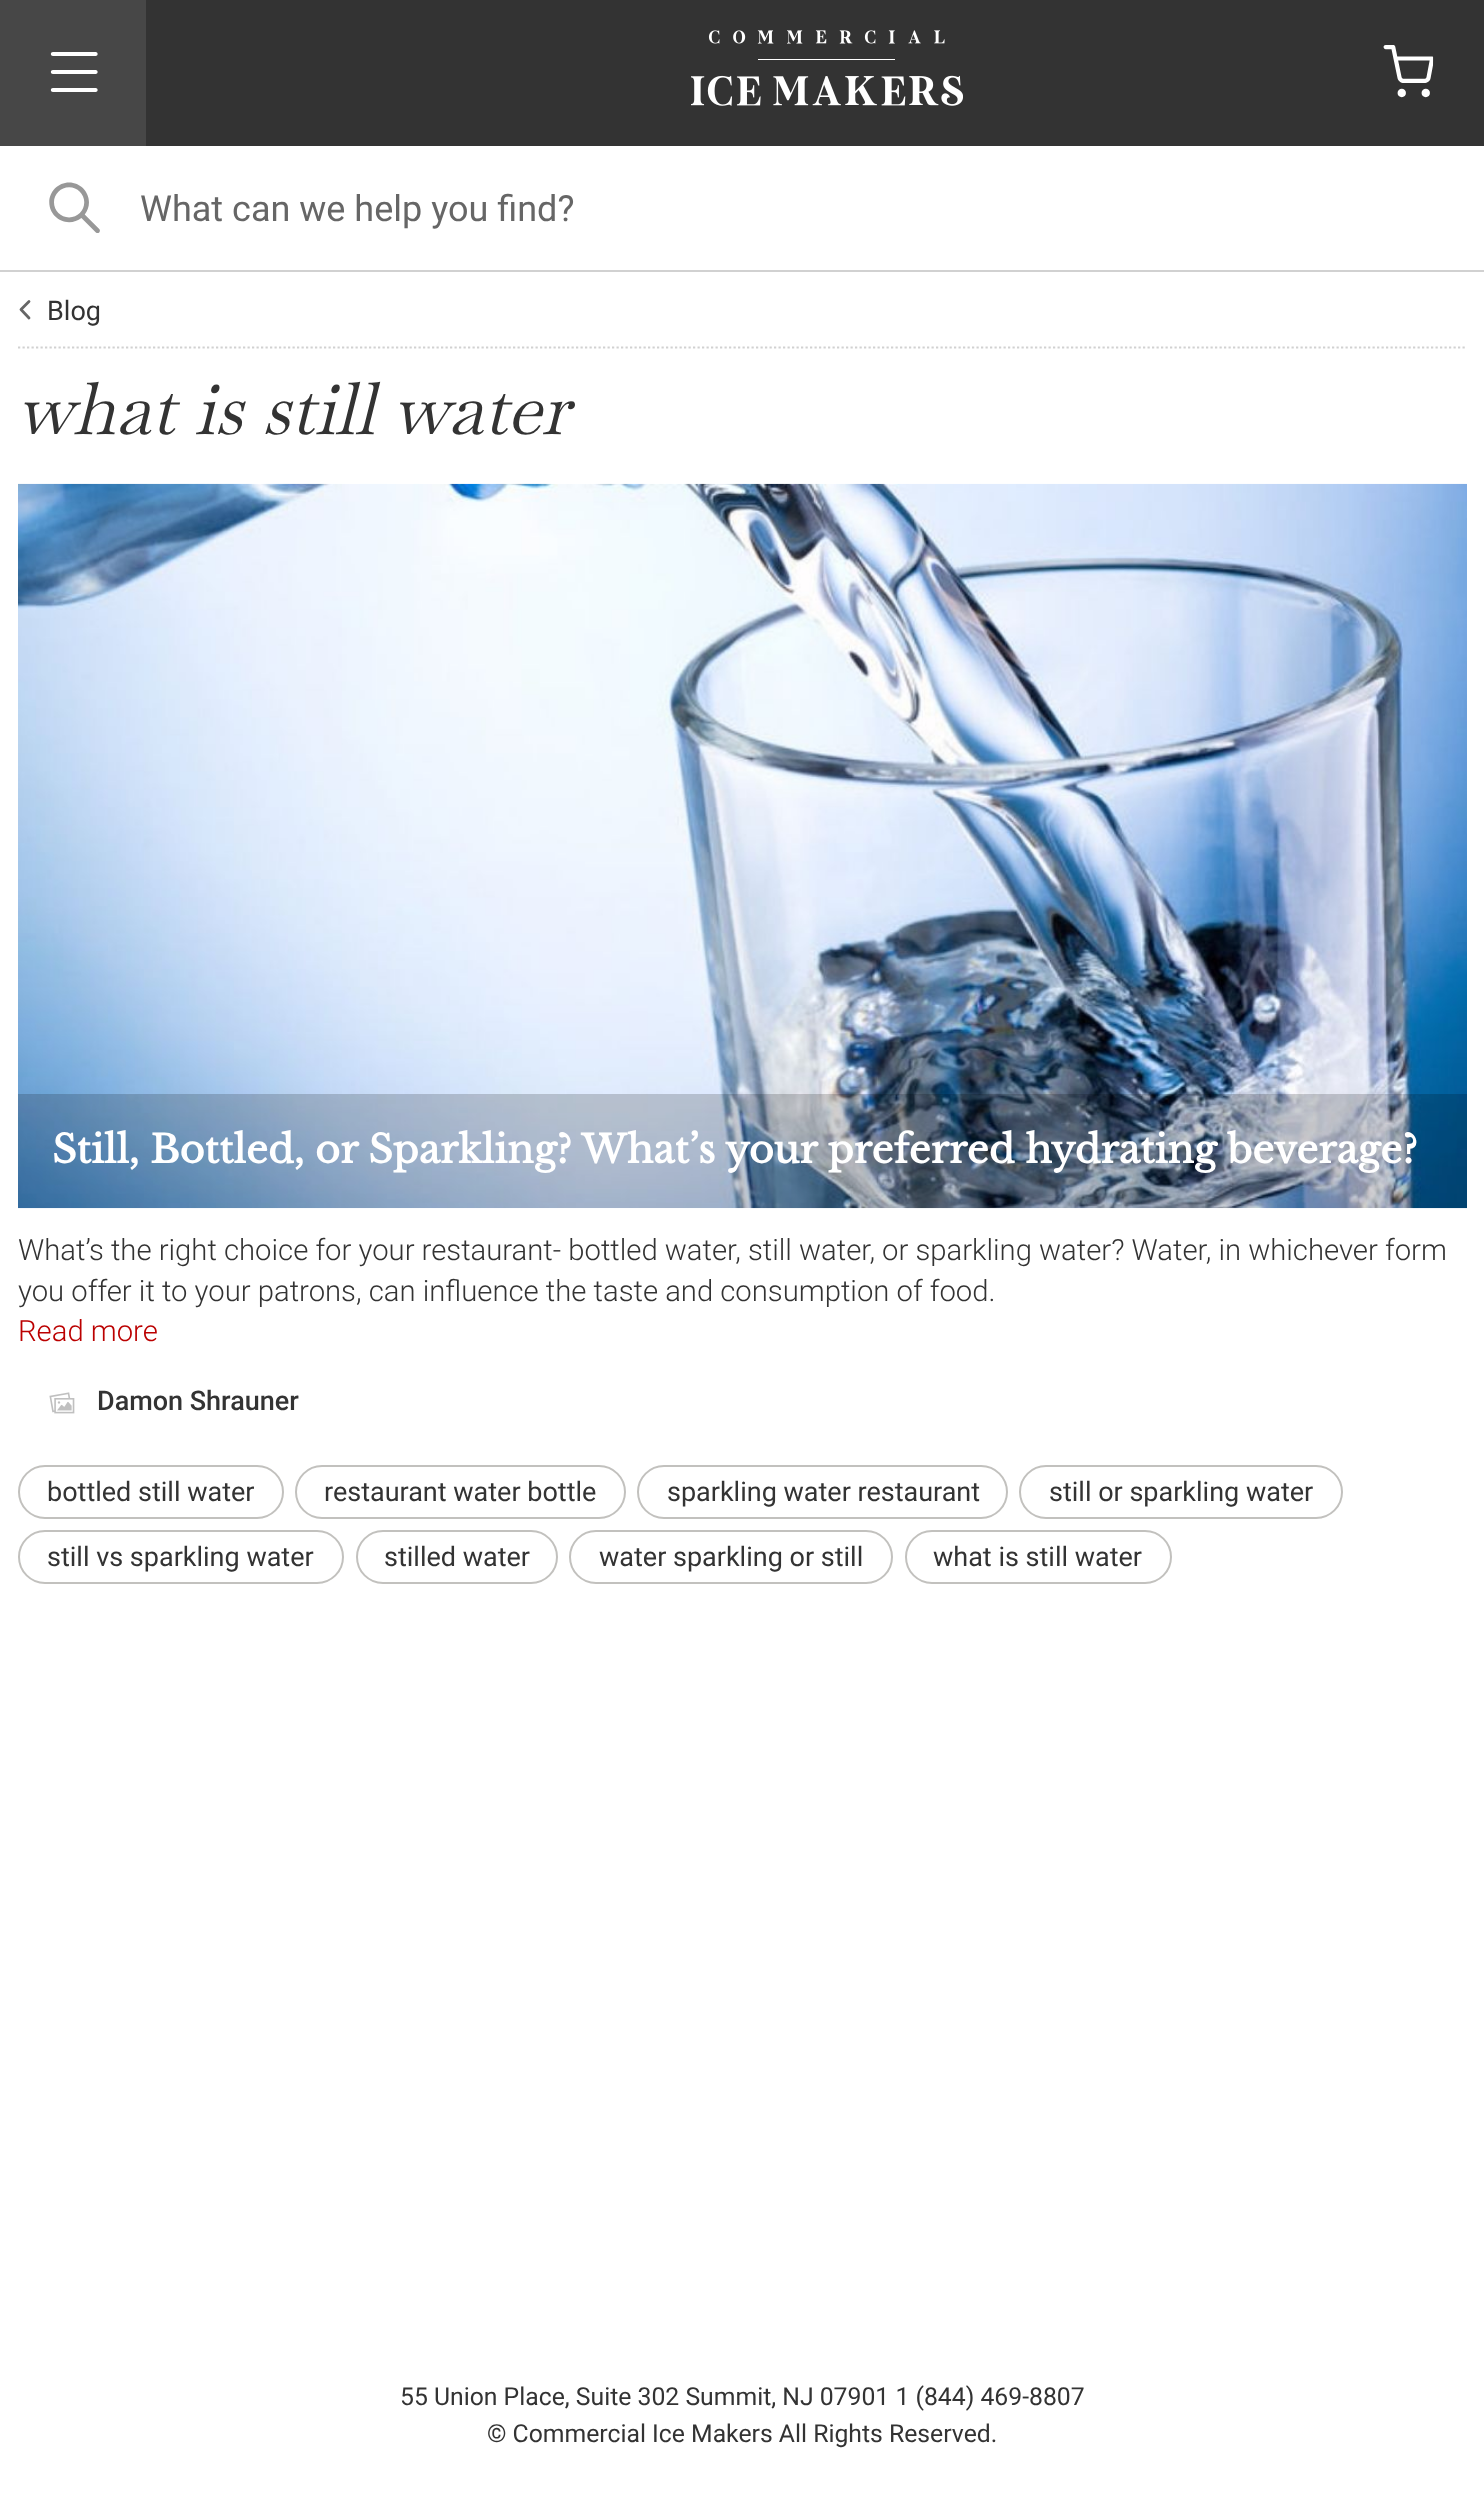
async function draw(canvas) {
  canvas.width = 1484
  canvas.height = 2511
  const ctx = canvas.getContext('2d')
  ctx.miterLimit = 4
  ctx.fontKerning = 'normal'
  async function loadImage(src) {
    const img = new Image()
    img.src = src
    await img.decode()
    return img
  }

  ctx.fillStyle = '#fff'
  ctx.fillRect(0, 0, 1484, 2511)
  ctx.fillStyle = '#333'
  ctx.fillRect(146, 0, 1338, 146)
  ctx.fillStyle = '#474747'
  ctx.fillRect(0, 0, 146, 146)
  ctx.drawImage(await loadImage('image0.png'), 50, 52, 48, 40)
  ctx.drawImage(await loadImage('image1.png'), 691, 30, 272, 76)
  ctx.drawImage(await loadImage('image2.png'), 1383, 45, 51, 53)
  ctx.fillStyle = '#d1d1d1'
  ctx.fillRect(0, 270, 1484, 2)
  ctx.drawImage(await loadImage('image3.png'), 49, 182, 51, 51)
  ctx.font = '36px Roboto'
  ctx.fillStyle = '#666'
  ctx.fillText('What can we help you find?', 140, 221)
  ctx.beginPath()
  ctx.moveTo(18, 347.5)
  ctx.lineTo(1467, 347.5)
  ctx.strokeStyle = '#d1d1d1'
  ctx.lineWidth = 2.2
  ctx.setLineDash([2.25, 2.25])
  ctx.stroke()
  ctx.beginPath()
  ctx.moveTo(29, 318)
  ctx.lineTo(21, 309.5)
  ctx.lineTo(29, 301.5)
  ctx.strokeStyle = '#666'
  ctx.lineWidth = 2.8
  ctx.lineCap = 'round'
  ctx.lineJoin = 'round'
  ctx.setLineDash([])
  ctx.stroke()
  ctx.font = '27px Roboto'
  ctx.fillStyle = '#333'
  ctx.fillText('Blog', 47, 320)
  ctx.font = 'italic 72px Baskervville'
  ctx.fillText('what is still water', 18, 434)
  ctx.drawImage(await loadImage('image4.png'), 18, 483, 1449, 726)
  ctx.fillStyle = '#0000002e'
  ctx.fillRect(18, 1094, 1449, 114)
  ctx.font = 'bold 38.25px Libre Baskerville'
  ctx.fillStyle = '#fff'
  ctx.fillText('Still, Bottled, or Sparkling? What’s your preferred hydrating beverage?', 52, 1163)
  ctx.font = '300 29.25px Roboto'
  ctx.fillStyle = '#333'
  ctx.fillText('What’s the right choice for your restaurant- bottled water, still water, or sparkling water? Water, in whichever form', 18, 1260)
  ctx.fillText('you offer it to your patrons, can influence the taste and consumption of food.', 18, 1301)
  ctx.fillStyle = '#b00'
  ctx.fillText('Read more', 18, 1341)
  ctx.drawImage(await loadImage('image5.png'), 49, 1392, 26, 22)
  ctx.font = '500 27px Roboto'
  ctx.fillStyle = '#333'
  ctx.fillText('Damon Shrauner', 97, 1410)
  ctx.beginPath()
  ctx.roundRect(19, 1466, 264, 52, 26)
  ctx.strokeStyle = '#c2c1be'
  ctx.lineWidth = 2
  ctx.lineJoin = 'miter'
  ctx.stroke()
  ctx.font = '27px Roboto'
  ctx.fillText('bottled still water', 47, 1501)
  ctx.beginPath()
  ctx.roundRect(296, 1466, 329, 52, 26)
  ctx.stroke()
  ctx.fillText('restaurant water bottle', 324, 1501)
  ctx.beginPath()
  ctx.roundRect(638, 1466, 369, 52, 26)
  ctx.stroke()
  ctx.fillText('sparkling water restaurant', 667, 1501)
  ctx.beginPath()
  ctx.roundRect(1020, 1466, 322, 52, 26)
  ctx.stroke()
  ctx.fillText('still or sparkling water', 1049, 1501)
  ctx.beginPath()
  ctx.roundRect(19, 1531, 324, 52, 26)
  ctx.stroke()
  ctx.fillText('still vs sparkling water', 47, 1566)
  ctx.beginPath()
  ctx.roundRect(357, 1531, 200, 52, 26)
  ctx.stroke()
  ctx.fillText('stilled water', 384, 1566)
  ctx.beginPath()
  ctx.roundRect(570, 1531, 322, 52, 26)
  ctx.stroke()
  ctx.fillText('water sparkling or still', 599, 1566)
  ctx.beginPath()
  ctx.roundRect(906, 1531, 265, 52, 26)
  ctx.stroke()
  ctx.fillText('what is still water', 933, 1566)
  ctx.font = '24.75px Roboto'
  ctx.fillText('55 Union Place, Suite 302 Summit, NJ 07901 1 (844) 469-8807', 400, 2405)
  ctx.fillText('© Commercial Ice Makers All Rights Reserved.', 487, 2442)
}

draw(document.querySelector('canvas'))
